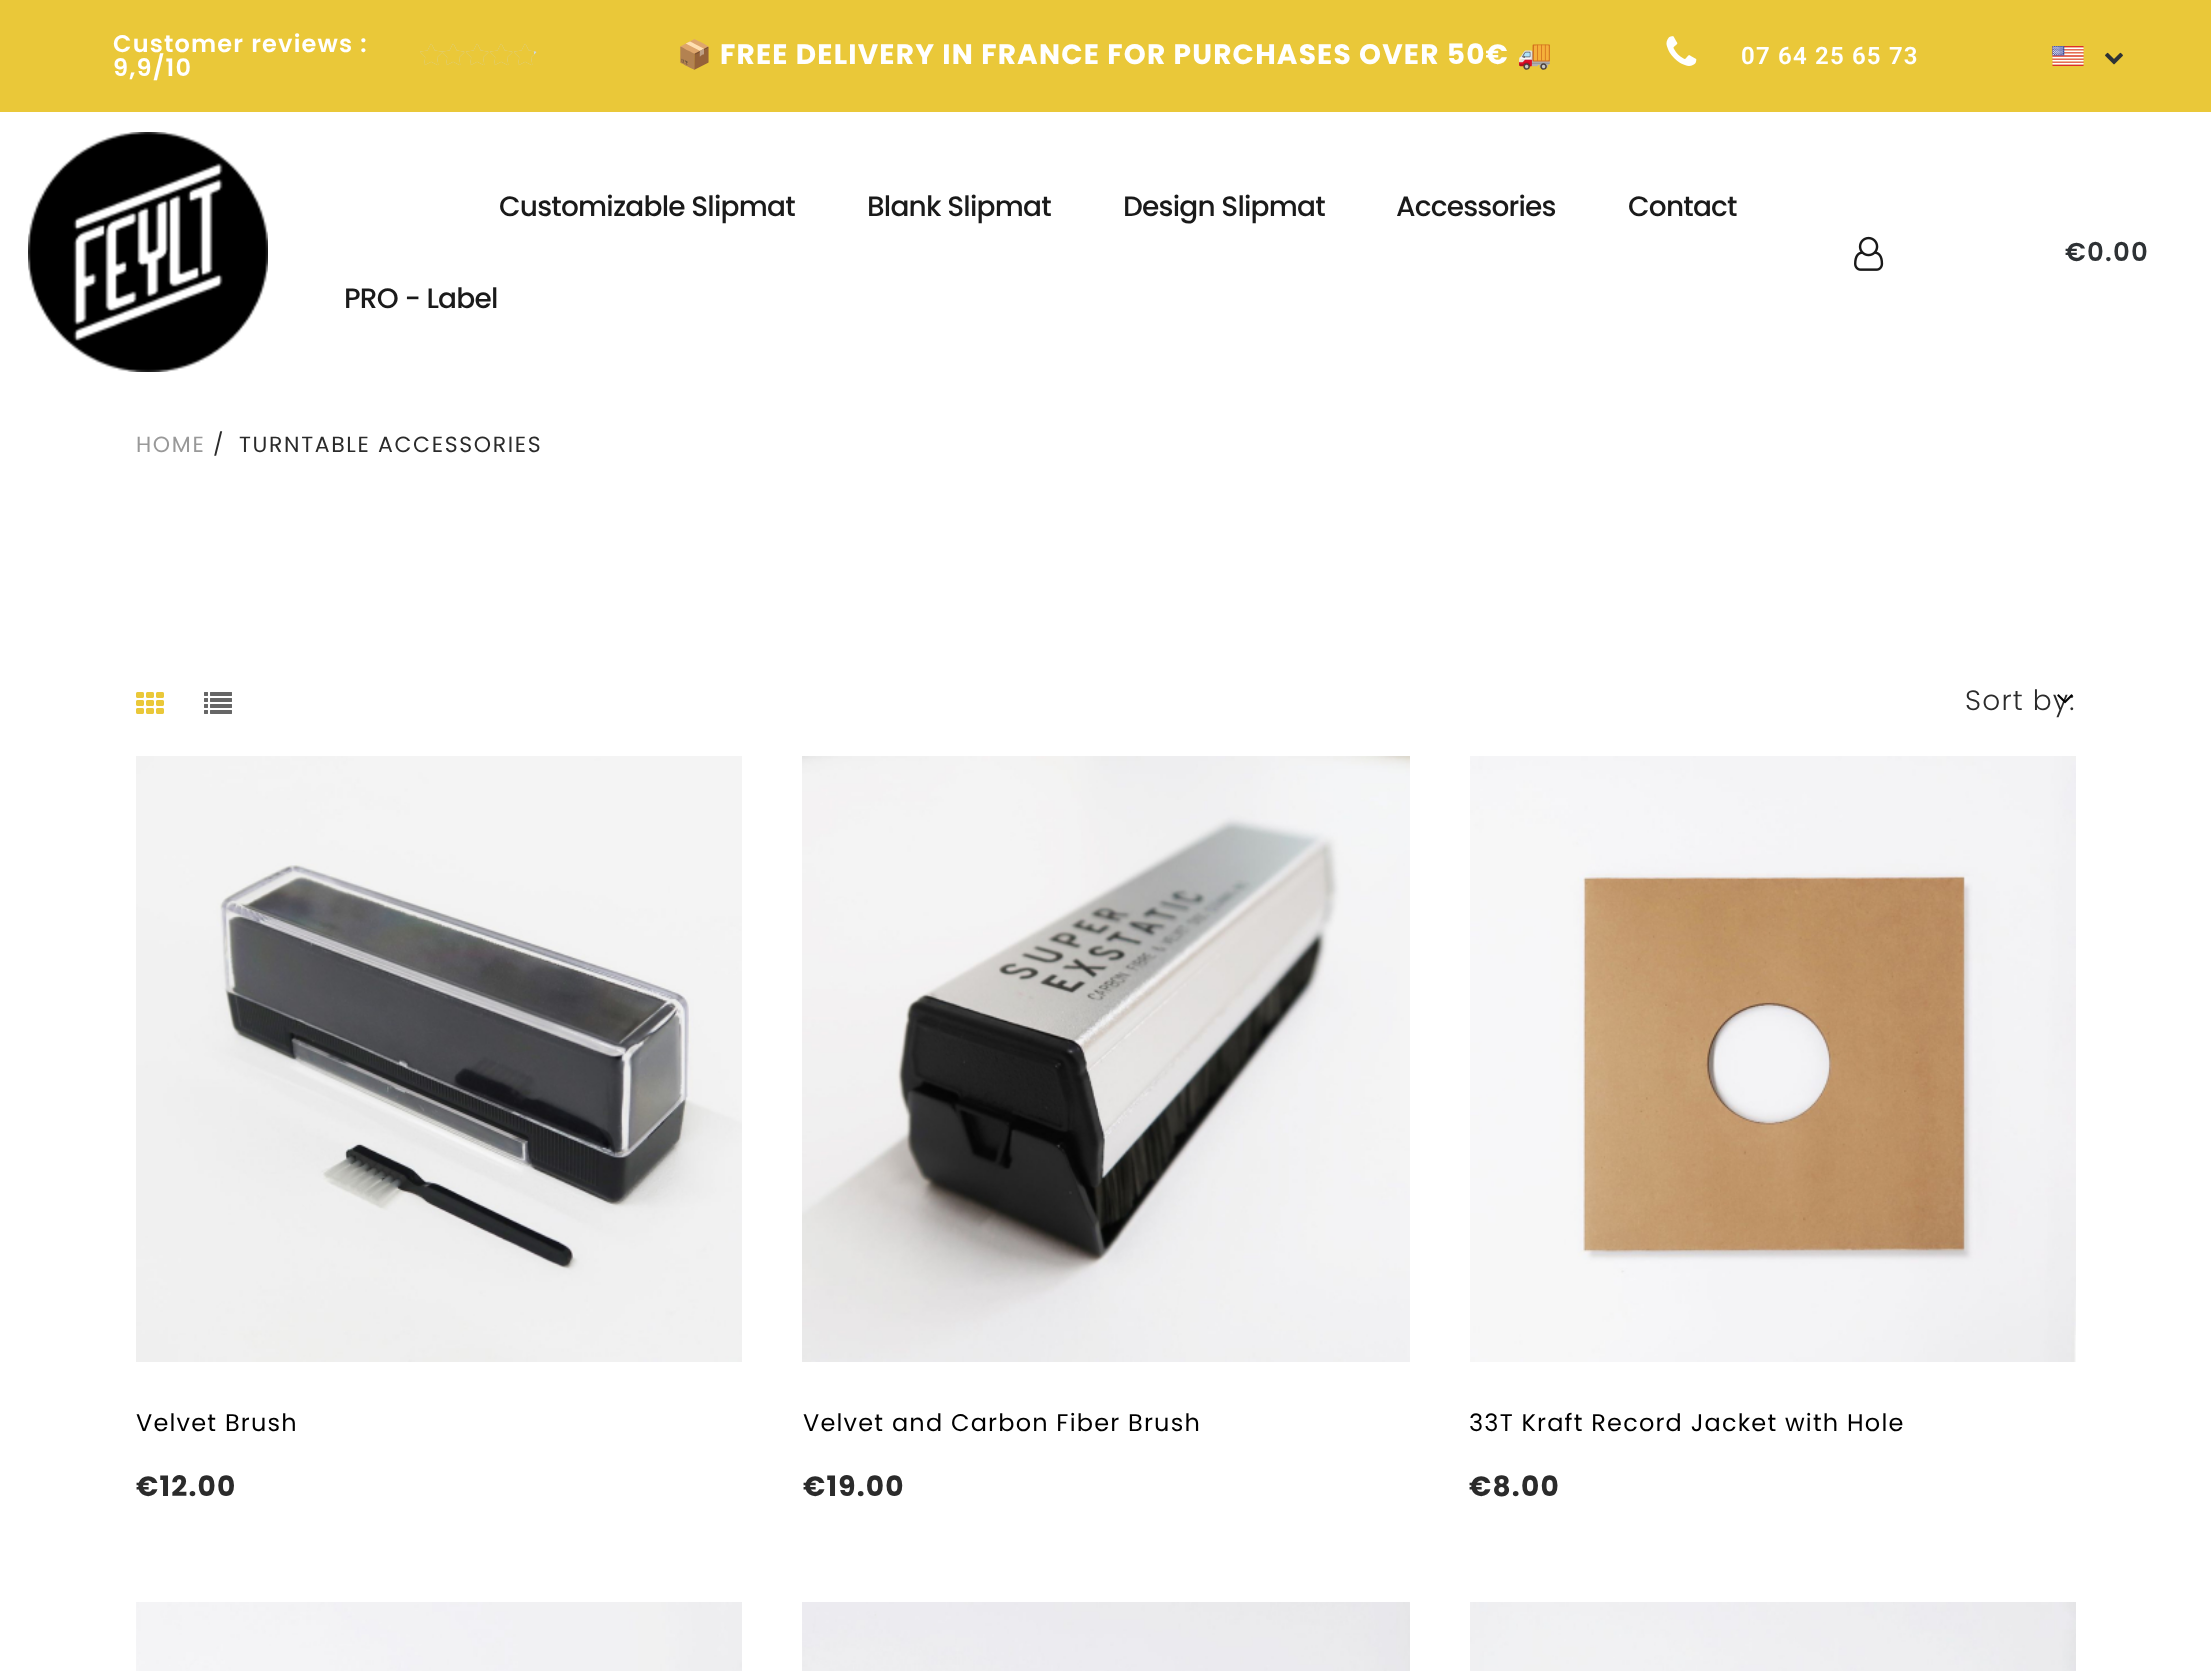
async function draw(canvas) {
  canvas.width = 2211
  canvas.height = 1671
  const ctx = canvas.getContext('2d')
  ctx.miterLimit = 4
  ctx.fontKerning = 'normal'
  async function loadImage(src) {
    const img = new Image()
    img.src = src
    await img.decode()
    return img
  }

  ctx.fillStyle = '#fff'
  ctx.fillRect(0, 0, 2211, 1671)
  ctx.fillStyle = '#eac839'
  ctx.fillRect(0, 0, 2211, 112)
  ctx.letterSpacing = '1.2px'
  ctx.font = '600 24px Poppins'
  ctx.fillStyle = '#fff'
  ctx.fillText('Customer reviews :', 113, 52)
  ctx.fillText('9,9/10', 113, 76)
  ctx.drawImage(await loadImage('image0.png'), 420, 43, 23, 23)
  ctx.drawImage(await loadImage('image1.png'), 420, 44, 22, 21)
  ctx.drawImage(await loadImage('image2.png'), 442, 43, 23, 23)
  ctx.drawImage(await loadImage('image3.png'), 442, 44, 22, 21)
  ctx.drawImage(await loadImage('image0.png'), 466, 43, 23, 23)
  ctx.drawImage(await loadImage('image1.png'), 466, 44, 22, 21)
  ctx.drawImage(await loadImage('image0.png'), 490, 43, 23, 23)
  ctx.drawImage(await loadImage('image1.png'), 490, 44, 22, 21)
  ctx.drawImage(await loadImage('image0.png'), 514, 43, 23, 23)
  ctx.drawImage(await loadImage('image4.png'), 514, 44, 20, 21)
  ctx.font = 'bold 28px Noto Color Emoji'
  ctx.fillText('📦', 677, 64)
  ctx.font = 'bold 28px Poppins'
  ctx.fillText('FREE DELIVERY IN FRANCE FOR PURCHASES OVER 50€', 720, 64)
  ctx.font = 'bold 28px Noto Color Emoji'
  ctx.fillText('🚚', 1517, 64)
  ctx.drawImage(await loadImage('image5.png'), 1666, 36, 31, 30)
  ctx.font = '600 24px Roboto'
  ctx.fillText('07 64 25 65 73', 1741, 64)
  ctx.drawImage(await loadImage('image6.png'), 2052, 46, 32, 20)
  ctx.drawImage(await loadImage('image7.png'), 2105, 52, 18, 13)
  ctx.drawImage(await loadImage('image8.png'), 28, 132, 240, 240)
  ctx.letterSpacing = '-0.8px'
  ctx.font = '500 28px Poppins'
  ctx.fillStyle = '#1a1a1a'
  ctx.fillText('Customizable Slipmat', 499, 216)
  ctx.fillText('Blank Slipmat', 867, 216)
  ctx.fillText('Design Slipmat', 1123, 216)
  ctx.fillText('Accessories', 1396, 216)
  ctx.fillText('Contact', 1628, 216)
  ctx.fillText('PRO - Label', 344, 308)
  ctx.drawImage(await loadImage('image9.png'), 1854, 236, 30, 35)
  ctx.letterSpacing = '1.2px'
  ctx.font = '600 26px Poppins'
  ctx.fillStyle = '#2e3235'
  ctx.fillText('€0.00', 2065, 261)
  ctx.letterSpacing = '1.65px'
  ctx.font = '22px Poppins'
  ctx.fillStyle = '#999'
  ctx.fillText('HOME', 136, 452)
  ctx.fillStyle = '#2b2b2b'
  ctx.fillText('/', 213, 452)
  ctx.fillText('TURNTABLE ACCESSORIES', 239, 452)
  ctx.drawImage(await loadImage('image10.png'), 136, 692, 28, 22)
  ctx.drawImage(await loadImage('image11.png'), 204, 692, 28, 22)
  ctx.letterSpacing = '1.2px'
  ctx.font = '300 28px Poppins'
  ctx.fillText('Sort by:', 1965, 710)
  ctx.drawImage(await loadImage('image12.png'), 2057, 694, 16, 10)
  ctx.drawImage(await loadImage('image13.png'), 136, 756, 606, 606)
  ctx.font = '24px Poppins'
  ctx.fillStyle = '#000'
  ctx.fillText('Velvet Brush', 136, 1431)
  ctx.font = 'bold 28px Poppins'
  ctx.fillStyle = '#2b2b2b'
  ctx.fillText('€12.00', 136, 1496)
  ctx.drawImage(await loadImage('image14.png'), 802, 756, 608, 606)
  ctx.font = '24px Poppins'
  ctx.fillStyle = '#000'
  ctx.fillText('Velvet and Carbon Fiber Brush', 803, 1431)
  ctx.font = 'bold 28px Poppins'
  ctx.fillStyle = '#2b2b2b'
  ctx.fillText('€19.00', 803, 1496)
  ctx.drawImage(await loadImage('image15.png'), 1470, 756, 606, 606)
  ctx.font = '24px Poppins'
  ctx.fillStyle = '#000'
  ctx.fillText('33T Kraft Record Jacket with Hole', 1469, 1431)
  ctx.font = 'bold 28px Poppins'
  ctx.fillStyle = '#2b2b2b'
  ctx.fillText('€8.00', 1469, 1496)
  ctx.drawImage(await loadImage('image16.png'), 136, 1602, 606, 69)
  ctx.drawImage(await loadImage('image17.png'), 802, 1602, 608, 69)
  ctx.drawImage(await loadImage('image18.png'), 1470, 1602, 606, 69)
}

draw(document.querySelector('canvas'))
